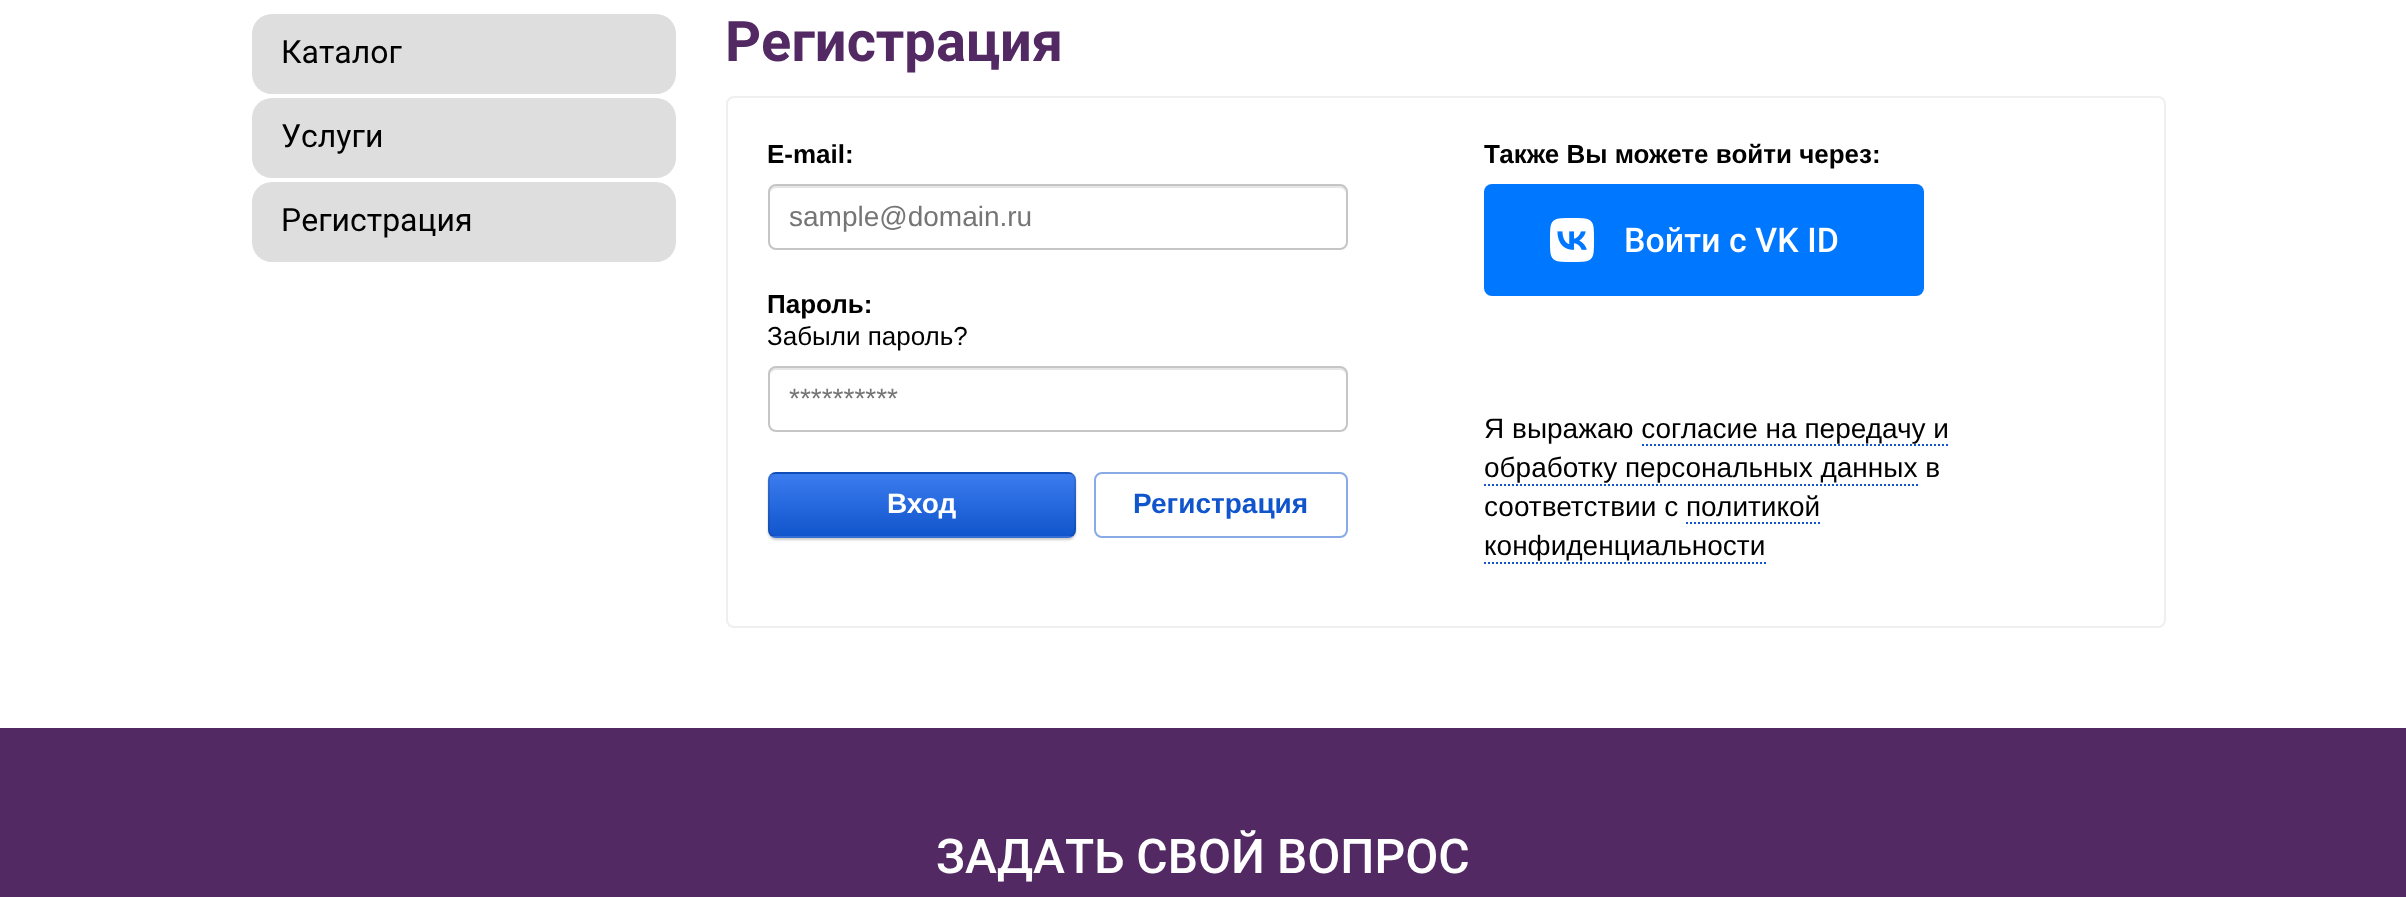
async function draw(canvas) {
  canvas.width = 2406
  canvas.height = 897
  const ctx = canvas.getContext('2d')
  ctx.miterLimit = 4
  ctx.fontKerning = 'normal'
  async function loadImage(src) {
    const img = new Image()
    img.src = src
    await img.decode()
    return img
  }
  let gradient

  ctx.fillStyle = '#fff'
  ctx.fillRect(0, 0, 2406, 897)
  ctx.fillStyle = '#dedede'
  ctx.beginPath()
  ctx.roundRect(252, 14, 424, 80, 20)
  ctx.fill()
  ctx.font = '32px Roboto'
  ctx.fillStyle = '#000'
  ctx.fillText('Каталог', 281, 63)
  ctx.fillStyle = '#dedede'
  ctx.beginPath()
  ctx.roundRect(252, 98, 424, 80, 20)
  ctx.fill()
  ctx.fillStyle = '#000'
  ctx.fillText('Услуги', 281, 147)
  ctx.fillStyle = '#dedede'
  ctx.beginPath()
  ctx.roundRect(252, 182, 424, 80, 20)
  ctx.fill()
  ctx.fillStyle = '#000'
  ctx.fillText('Регистрация', 281, 231)
  ctx.font = 'bold 56px Roboto'
  ctx.fillStyle = '#532964'
  ctx.fillText('Регистрация', 725, 61)
  ctx.beginPath()
  ctx.roundRect(727, 97, 1438, 530, 7)
  ctx.strokeStyle = '#efefef'
  ctx.lineWidth = 2
  ctx.stroke()
  ctx.font = 'bold 26px Liberation Sans'
  ctx.fillStyle = '#000'
  ctx.fillText('E-mail:', 767, 163)
  ctx.fillStyle = '#e6e6e6'
  ctx.beginPath()
  ctx.moveTo(776, 188)
  ctx.lineTo(1340, 188)
  ctx.bezierCurveTo(1343, 188, 1346, 191, 1346, 194)
  ctx.bezierCurveTo(1346, 190, 1345, 186, 1340, 186)
  ctx.lineTo(776, 186)
  ctx.bezierCurveTo(771, 186, 770, 190, 770, 194)
  ctx.bezierCurveTo(770, 191, 773, 188, 776, 188)
  ctx.closePath()
  ctx.fill()
  ctx.beginPath()
  ctx.roundRect(769, 185, 578, 64, 7)
  ctx.strokeStyle = '#c5c5c5'
  ctx.stroke()
  ctx.font = '28px Liberation Sans'
  ctx.fillStyle = '#757575'
  ctx.fillText('sample@domain.ru', 789, 226)
  ctx.font = 'bold 26px Liberation Sans'
  ctx.fillStyle = '#000'
  ctx.fillText('Пароль:', 767, 313)
  ctx.font = '26px Liberation Sans'
  ctx.fillText('Забыли пароль?', 767, 345)
  ctx.fillStyle = '#e6e6e6'
  ctx.beginPath()
  ctx.moveTo(776, 370)
  ctx.lineTo(1340, 370)
  ctx.bezierCurveTo(1343, 370, 1346, 373, 1346, 376)
  ctx.bezierCurveTo(1346, 372, 1345, 368, 1340, 368)
  ctx.lineTo(776, 368)
  ctx.bezierCurveTo(771, 368, 770, 372, 770, 376)
  ctx.bezierCurveTo(770, 373, 773, 370, 776, 370)
  ctx.closePath()
  ctx.fill()
  ctx.beginPath()
  ctx.roundRect(769, 367, 578, 64, 7)
  ctx.stroke()
  ctx.font = '28px Liberation Sans'
  ctx.fillStyle = '#757575'
  ctx.fillText('**********', 789, 408)
  ctx.fillStyle = '#00000033'
  ctx.filter = 'blur(1px)'
  ctx.beginPath()
  ctx.roundRect(768, 474, 308, 66, 8)
  ctx.fill()
  ctx.filter = 'none'
  ctx.save()
  ctx.beginPath()
  ctx.roundRect(768, 472, 308, 66, 8)
  ctx.clip()
  gradient = ctx.createLinearGradient(922, 412, 922, 474)
  gradient.addColorStop(0, '#3b7cef')
  gradient.addColorStop(1, '#15c')
  ctx.fillStyle = gradient
  ctx.fillRect(768, 472, 308, 2)
  gradient = ctx.createLinearGradient(922, 474, 922, 536)
  gradient.addColorStop(0, '#3b7cef')
  gradient.addColorStop(1, '#15c')
  ctx.fillStyle = gradient
  ctx.fillRect(768, 474, 308, 62)
  gradient = ctx.createLinearGradient(922, 536, 922, 598)
  gradient.addColorStop(0, '#3b7cef')
  gradient.addColorStop(1, '#15c')
  ctx.fillStyle = gradient
  ctx.fillRect(768, 536, 308, 2)
  ctx.restore()
  ctx.beginPath()
  ctx.roundRect(769, 473, 306, 64, 7)
  ctx.strokeStyle = '#0000001a'
  ctx.stroke()
  ctx.font = 'bold 28px Liberation Sans'
  ctx.fillStyle = '#fff'
  ctx.fillText('Вход', 887, 513)
  ctx.beginPath()
  ctx.roundRect(1095, 473, 252, 64, 7)
  ctx.strokeStyle = '#88aae6'
  ctx.stroke()
  ctx.fillStyle = '#15c'
  ctx.fillText('Регистрация', 1133, 513)
  ctx.font = 'bold 26px Liberation Sans'
  ctx.fillStyle = '#000'
  ctx.fillText('Также Вы можете войти через:', 1484, 163)
  ctx.fillStyle = '#07f'
  ctx.beginPath()
  ctx.roundRect(1484, 184, 440, 112, 8)
  ctx.fill()
  ctx.drawImage(await loadImage('image0.png'), 1550, 218, 288, 44)
  ctx.font = '28px Liberation Sans'
  ctx.fillStyle = '#000'
  ctx.fillText('Я выражаю согласие на передачу и', 1484, 438)
  ctx.fillText('обработку персональных данных в', 1484, 477)
  ctx.beginPath()
  ctx.moveTo(1642, 445)
  ctx.lineTo(1950, 445)
  ctx.strokeStyle = '#15c'
  ctx.setLineDash([2, 2])
  ctx.stroke()
  ctx.beginPath()
  ctx.moveTo(1484, 485)
  ctx.lineTo(1918, 485)
  ctx.stroke()
  ctx.fillText('соответствии с политикой', 1484, 516)
  ctx.fillText('конфиденциальности', 1484, 555)
  ctx.beginPath()
  ctx.moveTo(1686, 523)
  ctx.lineTo(1820, 523)
  ctx.stroke()
  ctx.beginPath()
  ctx.moveTo(1484, 563)
  ctx.lineTo(1766, 563)
  ctx.stroke()
  ctx.fillStyle = '#532964'
  ctx.fillRect(0, 728, 2406, 169)
  ctx.font = '500 48px Roboto'
  ctx.fillStyle = '#fff'
  ctx.fillText('ЗАДАТЬ СВОЙ ВОПРОС', 936, 873)
}

draw(document.querySelector('canvas'))
